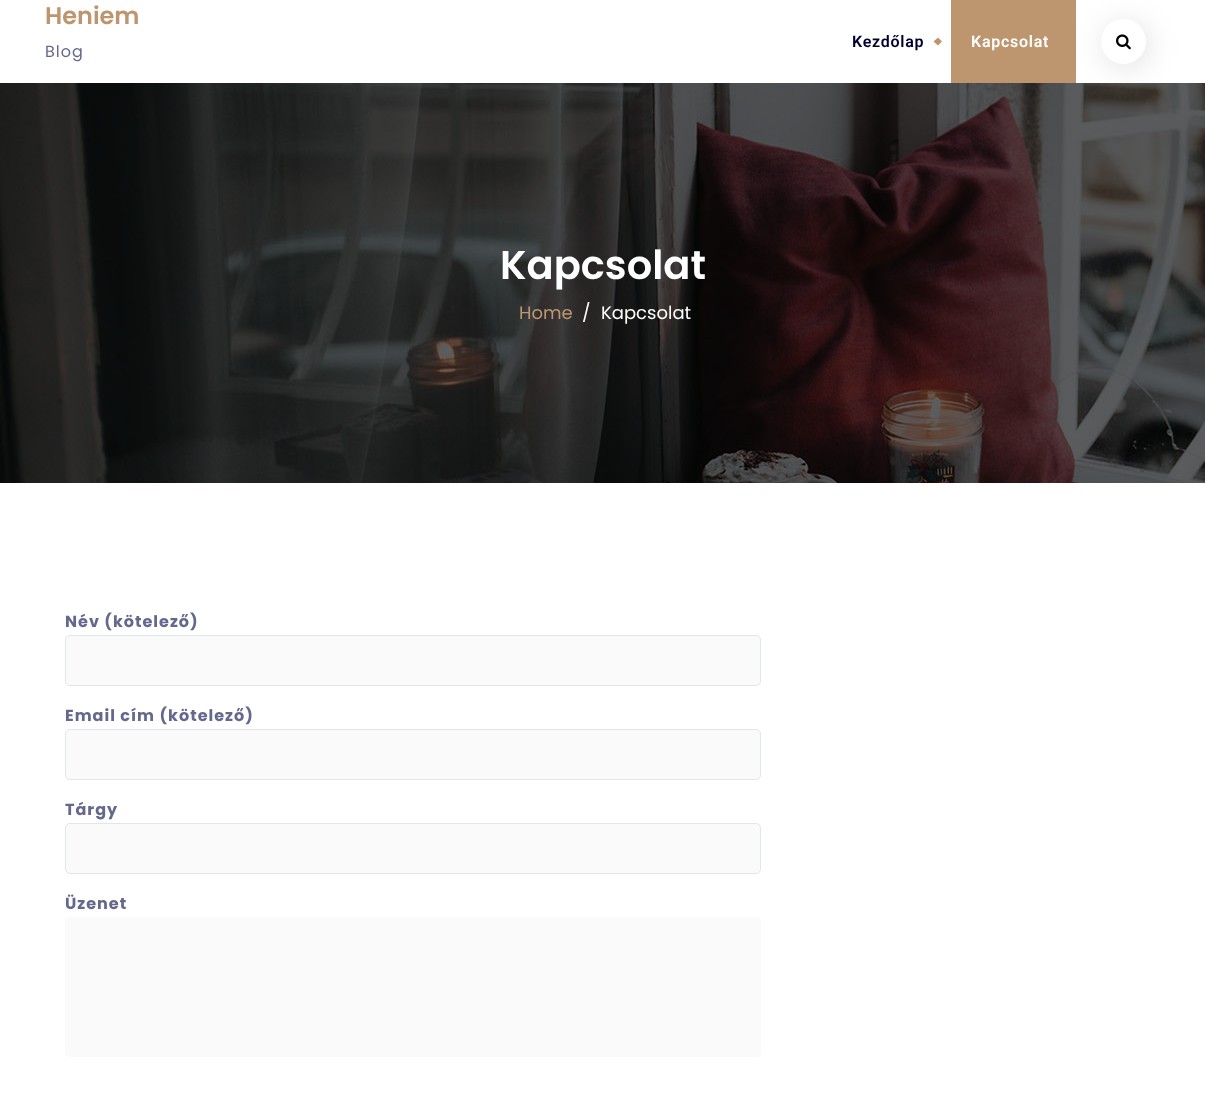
async function draw(canvas) {
  canvas.width = 1205
  canvas.height = 1113
  const ctx = canvas.getContext('2d')
  ctx.miterLimit = 4
  ctx.fontKerning = 'normal'
  async function loadImage(src) {
    const img = new Image()
    img.src = src
    await img.decode()
    return img
  }

  ctx.fillStyle = '#fff'
  ctx.fillRect(0, 0, 1205, 1113)
  ctx.font = '600 24px Poppins'
  ctx.fillStyle = '#bd966f'
  ctx.fillText('Heniem', 45, 24)
  ctx.letterSpacing = '1px'
  ctx.font = '16px Poppins'
  ctx.fillStyle = '#64688c'
  ctx.fillText('Blog', 45, 57)
  ctx.letterSpacing = '0.75px'
  ctx.font = '600 16px Roboto'
  ctx.fillStyle = '#01012f'
  ctx.fillText('Kezdőlap', 852, 47)
  ctx.fillStyle = '#bd966f'
  ctx.beginPath()
  ctx.moveTo(933.5, 41.5)
  ctx.lineTo(938, 37.5)
  ctx.lineTo(942, 41.5)
  ctx.lineTo(938, 45.5)
  ctx.closePath()
  ctx.fill()
  ctx.fillRect(951, 0, 125, 83)
  ctx.fillStyle = '#fff'
  ctx.fillText('Kapcsolat', 971, 47)
  ctx.drawImage(await loadImage('image1.png'), 0, 83, 1205, 400)
  ctx.fillStyle = '#d7d7d7c7'
  ctx.filter = 'blur(15px)'
  ctx.beginPath()
  ctx.roundRect(1104, 23, 45, 45, 22.5)
  ctx.fill()
  ctx.filter = 'none'
  ctx.fillStyle = '#fff'
  ctx.beginPath()
  ctx.arc(1123.5, 41.5, 22.5, 0, 2 * Math.PI)
  ctx.fill()
  ctx.drawImage(await loadImage('image0.png'), 1116, 34, 15, 16)
  ctx.letterSpacing = '0px'
  ctx.font = '600 40px Poppins'
  ctx.fillText('Kapcsolat', 500, 279)
  ctx.font = '18px Poppins'
  ctx.fillStyle = '#bd966f'
  ctx.fillText('Home', 519, 319)
  ctx.fillStyle = '#fff'
  ctx.fillText('/', 582, 319)
  ctx.fillText('Kapcsolat', 601, 319)
  ctx.letterSpacing = '1px'
  ctx.font = 'bold 16px Poppins'
  ctx.fillStyle = '#64688c'
  ctx.fillText('Név (kötelező)', 65, 627)
  ctx.fillStyle = '#fafafa'
  ctx.beginPath()
  ctx.roundRect(65.5, 635.5, 695, 50, 4.5)
  ctx.fill()
  ctx.strokeStyle = '#e1e6eb'
  ctx.stroke()
  ctx.fillStyle = '#64688c'
  ctx.fillText('Email cím (kötelező)', 65, 721)
  ctx.fillStyle = '#fafafa'
  ctx.beginPath()
  ctx.roundRect(65.5, 729.5, 695, 50, 4.5)
  ctx.fill()
  ctx.stroke()
  ctx.fillStyle = '#64688c'
  ctx.fillText('Tárgy', 65, 815)
  ctx.fillStyle = '#fafafa'
  ctx.beginPath()
  ctx.roundRect(65.5, 823.5, 695, 50, 4.5)
  ctx.fill()
  ctx.stroke()
  ctx.fillStyle = '#64688c'
  ctx.fillText('Üzenet', 65, 909)
  ctx.fillStyle = '#fafafa'
  ctx.beginPath()
  ctx.roundRect(65, 917, 696, 140, 4)
  ctx.fill()
}

draw(document.querySelector('canvas'))
